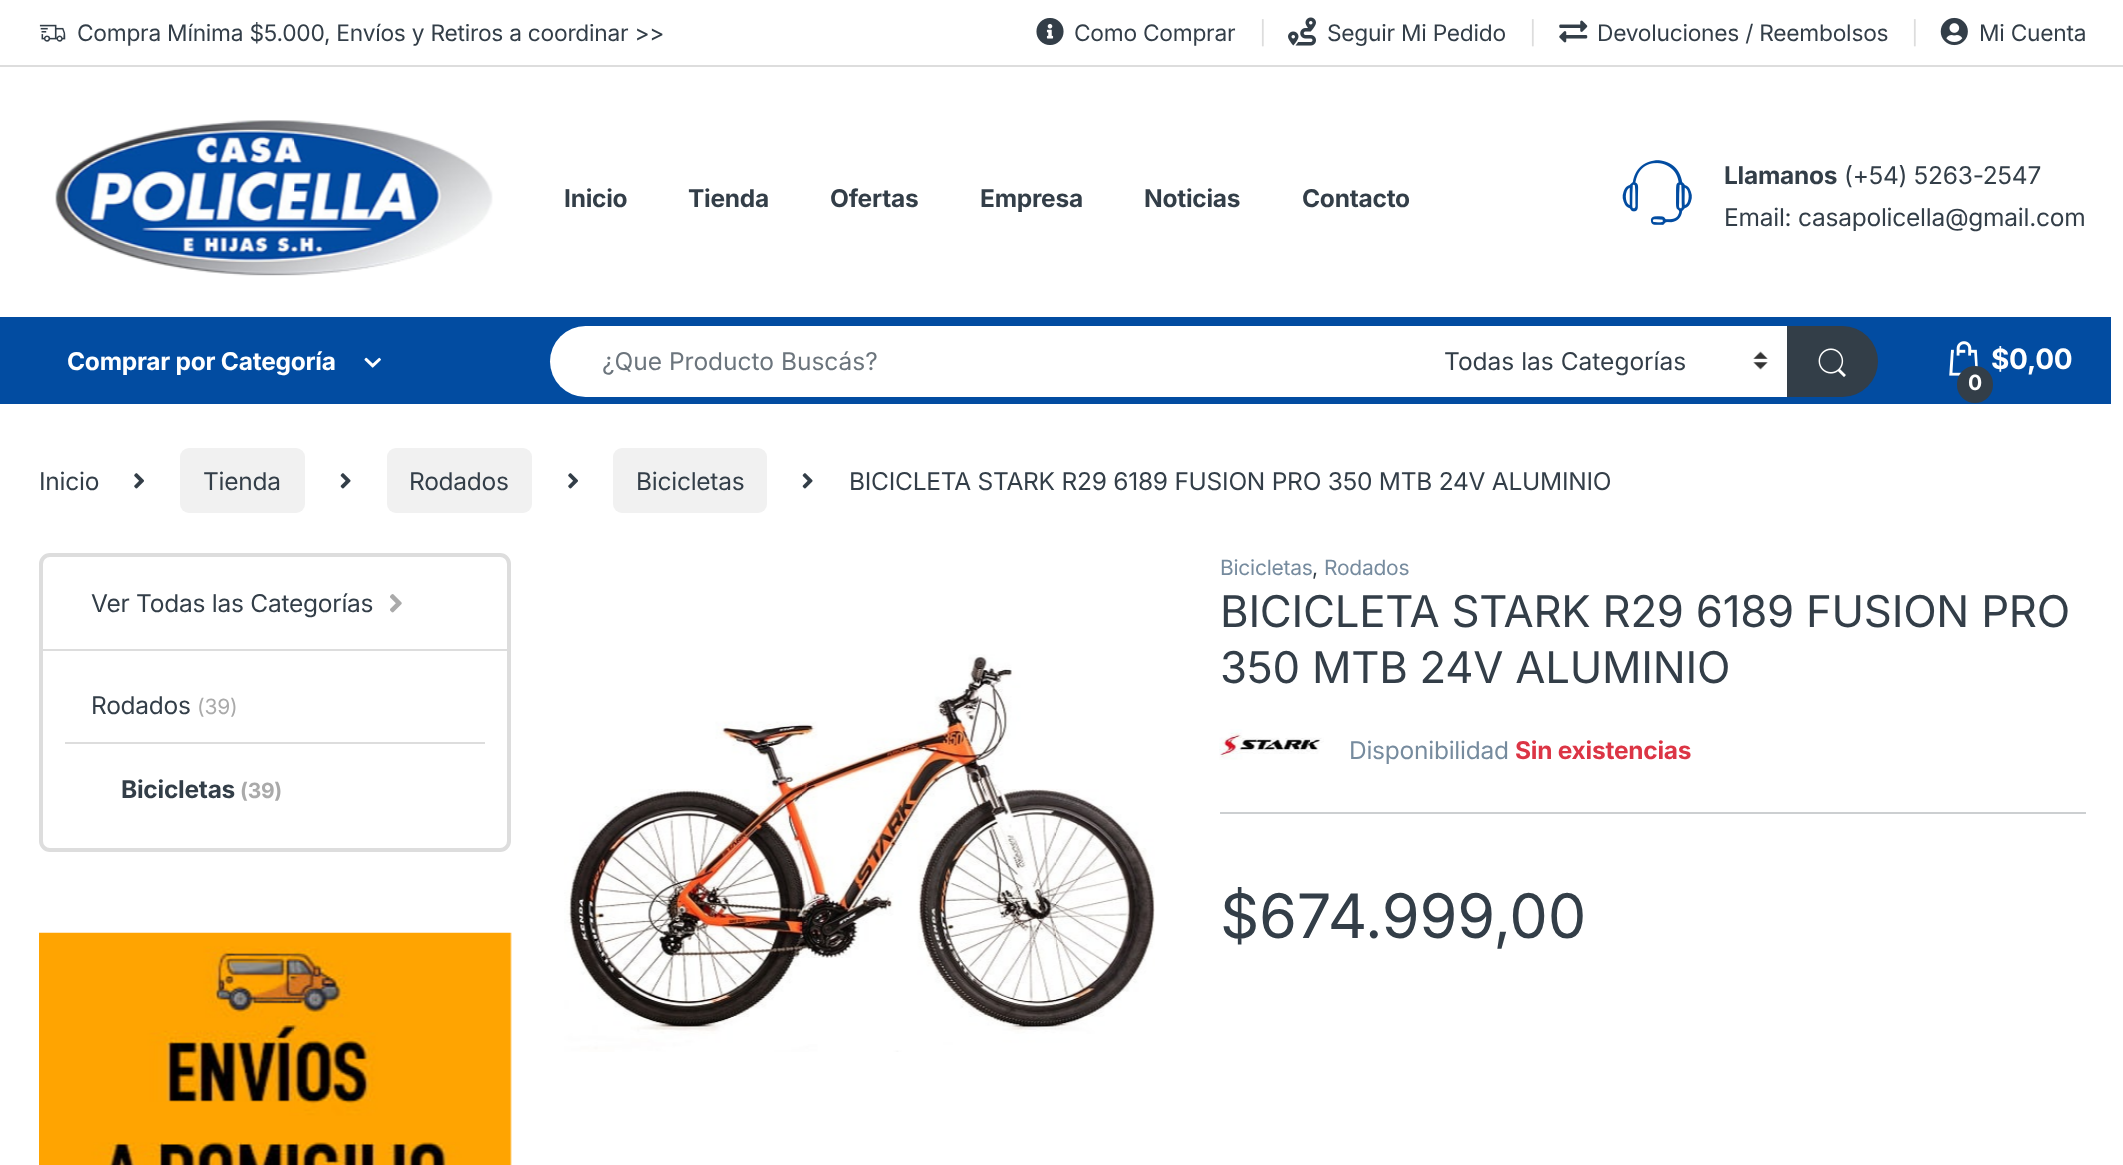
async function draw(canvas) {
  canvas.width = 2123
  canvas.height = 1165
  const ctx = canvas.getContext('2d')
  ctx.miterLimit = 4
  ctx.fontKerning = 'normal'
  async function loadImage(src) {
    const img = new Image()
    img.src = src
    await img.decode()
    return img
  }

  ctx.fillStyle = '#fff'
  ctx.fillRect(0, 0, 2123, 1165)
  ctx.fillStyle = '#ddd'
  ctx.fillRect(0, 65, 2123, 2)
  ctx.drawImage(await loadImage('image0.png'), 39, 24, 27, 18)
  ctx.letterSpacing = '-0.25px'
  ctx.font = '22.75px Inter'
  ctx.fillStyle = '#333e48'
  ctx.fillText('Compra Mínima $5.000, Envíos y Retiros a coordinar >>', 77, 41)
  ctx.drawImage(await loadImage('image1.png'), 1036, 18, 28, 27)
  ctx.fillText('Como Comprar', 1074, 41)
  ctx.fillStyle = '#ddd'
  ctx.fillText('|', 1259, 41)
  ctx.drawImage(await loadImage('image2.png'), 1288, 17, 28, 29)
  ctx.fillStyle = '#333e48'
  ctx.fillText('Seguir Mi Pedido', 1327, 41)
  ctx.fillStyle = '#ddd'
  ctx.fillText('|', 1529, 41)
  ctx.drawImage(await loadImage('image3.png'), 1559, 20, 29, 23)
  ctx.fillStyle = '#333e48'
  ctx.fillText('Devoluciones / Reembolsos', 1597, 41)
  ctx.fillStyle = '#ddd'
  ctx.fillText('|', 1911, 41)
  ctx.drawImage(await loadImage('image4.png'), 1940, 17, 28, 29)
  ctx.fillStyle = '#333e48'
  ctx.fillText('Mi Cuenta', 1979, 41)
  ctx.drawImage(await loadImage('image5.png'), 55, 120, 438, 156)
  ctx.font = 'bold 24.5px Inter'
  ctx.fillText('Inicio', 564, 207)
  ctx.fillText('Tienda', 688, 207)
  ctx.fillText('Ofertas', 830, 207)
  ctx.fillText('Empresa', 980, 207)
  ctx.fillText('Noticias', 1144, 207)
  ctx.fillText('Contacto', 1302, 207)
  ctx.drawImage(await loadImage('image6.png'), 1622, 160, 70, 65)
  ctx.fillText('Llamanos', 1724, 184)
  ctx.font = '24.5px Inter'
  ctx.fillText('(+54) 5263-2547', 1844, 184)
  ctx.fillText('Email: casapolicella@gmail.com', 1724, 226)
  ctx.fillStyle = '#024ca1'
  ctx.fillRect(0, 317, 2111, 87)
  ctx.font = 'bold 24.5px Inter'
  ctx.fillStyle = '#fff'
  ctx.fillText('Comprar por Categoría', 67, 370)
  ctx.drawImage(await loadImage('image7.png'), 364, 357, 17, 11)
  ctx.beginPath()
  ctx.roundRect(550, 326, 875, 71, [35.5, 0, 0, 35.5])
  ctx.fill()
  ctx.letterSpacing = '0px'
  ctx.font = '24.5px Inter'
  ctx.fillStyle = '#6c757d'
  ctx.fillText('¿Que Producto Buscás?', 602, 370)
  ctx.fillStyle = '#fff'
  ctx.fillRect(1425, 326, 362, 71)
  ctx.drawImage(await loadImage('image8.png'), 1753, 351, 15, 19)
  ctx.fillStyle = '#333e48'
  ctx.fillText('Todas las Categorías', 1444, 370)
  ctx.beginPath()
  ctx.roundRect(1787, 326, 91, 71, [0, 35.5, 35.5, 0])
  ctx.fill()
  ctx.drawImage(await loadImage('image9.png'), 1818, 348, 28, 29)
  ctx.drawImage(await loadImage('image10.png'), 1949, 341, 29, 35)
  ctx.letterSpacing = '-0.25px'
  ctx.font = 'bold 28px Inter'
  ctx.fillStyle = '#fff'
  ctx.fillText('$0,00', 1991, 369)
  ctx.fillStyle = '#333e48'
  ctx.beginPath()
  ctx.roundRect(1957, 366, 36, 37, 18)
  ctx.fill()
  ctx.font = 'bold 21px Inter'
  ctx.fillStyle = '#fff'
  ctx.fillText('0', 1968, 390)
  ctx.font = '24.5px Inter'
  ctx.fillStyle = '#333e48'
  ctx.fillText('Inicio', 39, 490)
  ctx.drawImage(await loadImage('image11.png'), 134, 473, 10, 16)
  ctx.fillStyle = '#f1f1f1'
  ctx.beginPath()
  ctx.roundRect(180, 448, 125, 65, 9)
  ctx.fill()
  ctx.fillStyle = '#333e48'
  ctx.fillText('Tienda', 203, 490)
  ctx.drawImage(await loadImage('image12.png'), 340, 473, 11, 16)
  ctx.fillStyle = '#f1f1f1'
  ctx.beginPath()
  ctx.roundRect(387, 448, 145, 65, 9)
  ctx.fill()
  ctx.fillStyle = '#333e48'
  ctx.fillText('Rodados', 409, 490)
  ctx.drawImage(await loadImage('image11.png'), 568, 473, 10, 16)
  ctx.fillStyle = '#f1f1f1'
  ctx.beginPath()
  ctx.roundRect(613, 448, 154, 65, 9)
  ctx.fill()
  ctx.fillStyle = '#333e48'
  ctx.fillText('Bicicletas', 636, 490)
  ctx.drawImage(await loadImage('image12.png'), 802, 473, 11, 16)
  ctx.fillText('BICICLETA STARK R29 6189 FUSION PRO 350 MTB 24V ALUMINIO', 849, 490)
  ctx.beginPath()
  ctx.roundRect(41, 555, 468, 295, 9)
  ctx.strokeStyle = '#ddd'
  ctx.lineWidth = 4
  ctx.stroke()
  ctx.fillStyle = '#ddd'
  ctx.fillRect(42, 649, 466, 2)
  ctx.fillStyle = '#333e48'
  ctx.fillText('Ver Todas las Categorías', 91, 612)
  ctx.drawImage(await loadImage('image13.png'), 390, 594, 12, 19)
  ctx.fillText('Rodados', 91, 714)
  ctx.font = '21px Inter'
  ctx.fillStyle = '#aaa'
  ctx.fillText('(39)', 197, 714)
  ctx.fillStyle = '#ddd'
  ctx.fillRect(65, 742, 420, 2)
  ctx.font = 'bold 24.5px Inter'
  ctx.fillStyle = '#333e48'
  ctx.fillText('Bicicletas', 121, 798)
  ctx.font = 'bold 21px Inter'
  ctx.fillStyle = '#aaa'
  ctx.fillText('(39)', 240, 798)
  ctx.drawImage(await loadImage('image14.png'), 39, 932, 473, 233)
  ctx.drawImage(await loadImage('image15.png'), 564, 654, 591, 398)
  ctx.font = '21px Inter'
  ctx.fillStyle = '#768b9e'
  ctx.fillText('Bicicletas', 1220, 575)
  ctx.fillStyle = '#333e48'
  ctx.fillText(',', 1312, 575)
  ctx.fillStyle = '#768b9e'
  ctx.fillText('Rodados', 1324, 575)
  ctx.font = '43.75px Inter'
  ctx.fillStyle = '#333e48'
  ctx.fillText('BICICLETA STARK R29 6189 FUSION PRO', 1220, 627)
  ctx.fillText('350 MTB 24V ALUMINIO', 1220, 683)
  ctx.drawImage(await loadImage('image16.png'), 1219, 729, 105, 31)
  ctx.font = '24.5px Inter'
  ctx.fillStyle = '#768b9e'
  ctx.fillText('Disponibilidad', 1349, 759)
  ctx.font = 'bold 24.5px Inter'
  ctx.fillStyle = '#dc3545'
  ctx.fillText('Sin existencias', 1515, 759)
  ctx.fillStyle = '#cccfd1'
  ctx.fillRect(1220, 812, 866, 2)
  ctx.font = '61.25px Inter'
  ctx.fillStyle = '#333e48'
  ctx.fillText('$674.999,00', 1220, 938)
}

draw(document.querySelector('canvas'))
